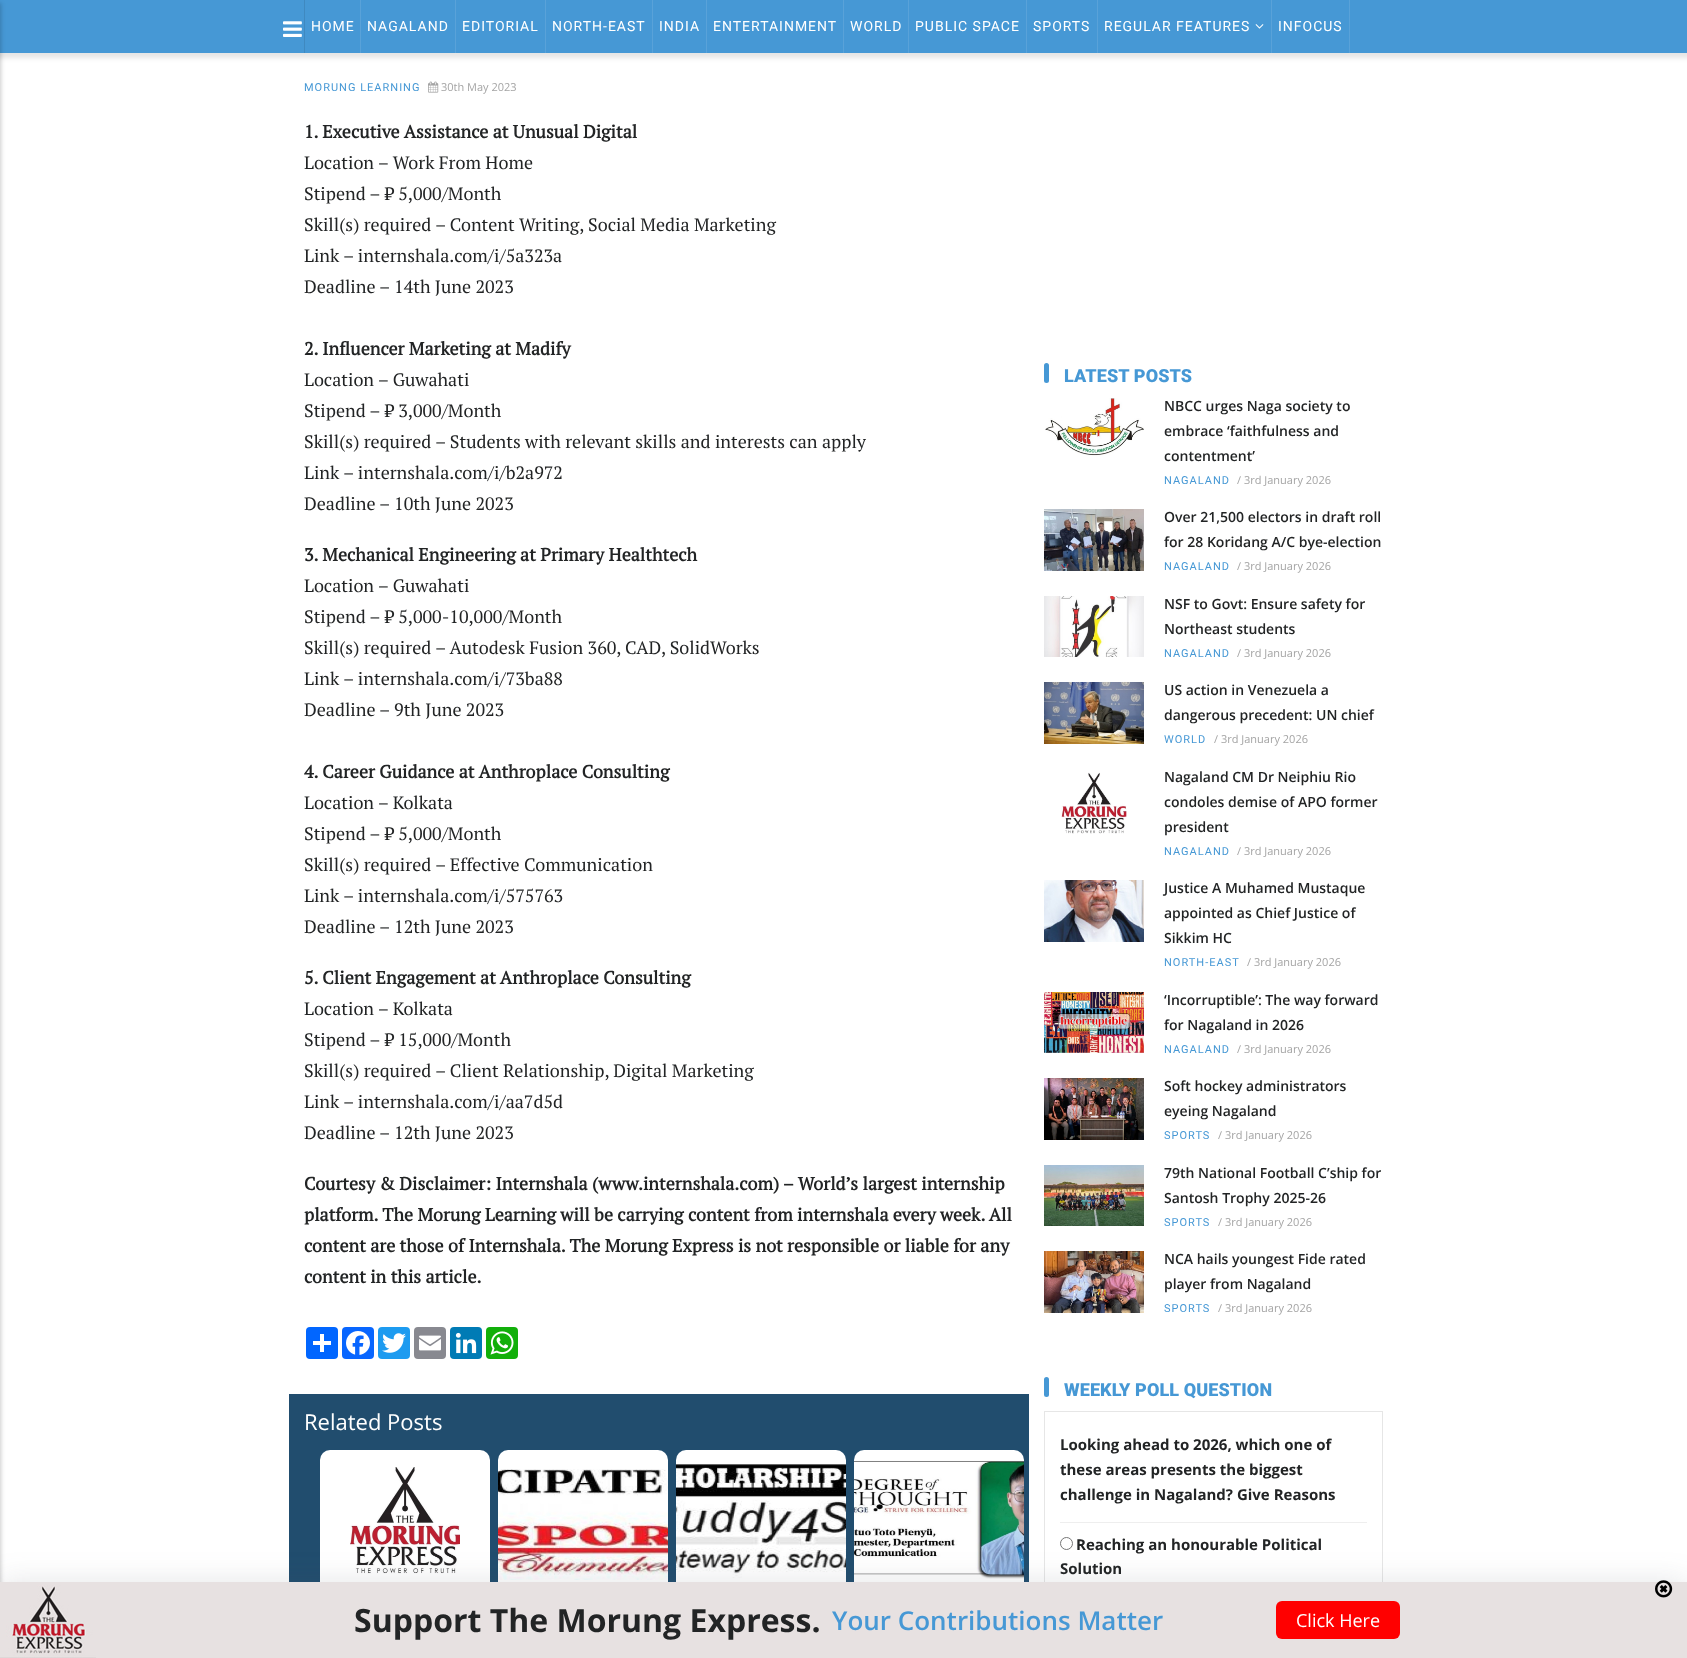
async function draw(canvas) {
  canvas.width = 1687
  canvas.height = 1658
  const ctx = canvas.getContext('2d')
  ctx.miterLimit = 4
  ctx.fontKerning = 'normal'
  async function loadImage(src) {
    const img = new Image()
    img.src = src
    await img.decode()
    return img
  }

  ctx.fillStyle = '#fff'
  ctx.fillRect(0, 0, 1687, 1658)
  ctx.fillStyle = '#0000001a'
  ctx.filter = 'blur(2.5px)'
  ctx.beginPath()
  ctx.rect(-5, -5, 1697, 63)
  ctx.fill()
  ctx.filter = 'none'
  ctx.fillStyle = '#4698d5'
  ctx.fillRect(0, 0, 1687, 53)
  ctx.fillStyle = '#00000033'
  ctx.filter = 'blur(2px)'
  ctx.beginPath()
  ctx.rect(-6, 3, 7, 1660)
  ctx.fill()
  ctx.filter = 'none'
  ctx.drawImage(await loadImage('image0.png'), 283, 21, 19, 16)
  ctx.fillStyle = '#59a2d9'
  ctx.fillRect(360, 0, 1, 53)
  ctx.fillStyle = '#3f89c0'
  ctx.fillRect(304, 0, 1, 53)
  ctx.letterSpacing = '1px'
  ctx.font = '14px Roboto'
  ctx.fillStyle = '#fff'
  ctx.fillText('HOME', 311, 31)
  ctx.fillStyle = '#59a2d9'
  ctx.fillRect(455, 0, 1, 53)
  ctx.fillStyle = '#fff'
  ctx.fillText('NAGALAND', 367, 31)
  ctx.fillStyle = '#59a2d9'
  ctx.fillRect(545, 0, 1, 53)
  ctx.fillStyle = '#fff'
  ctx.fillText('EDITORIAL', 462, 31)
  ctx.fillStyle = '#59a2d9'
  ctx.fillRect(652, 0, 1, 53)
  ctx.fillStyle = '#fff'
  ctx.fillText('NORTH-EAST', 552, 31)
  ctx.fillStyle = '#59a2d9'
  ctx.fillRect(706, 0, 1, 53)
  ctx.fillStyle = '#fff'
  ctx.fillText('INDIA', 659, 31)
  ctx.fillStyle = '#59a2d9'
  ctx.fillRect(843, 0, 1, 53)
  ctx.fillStyle = '#fff'
  ctx.fillText('ENTERTAINMENT', 713, 31)
  ctx.fillStyle = '#59a2d9'
  ctx.fillRect(908, 0, 1, 53)
  ctx.fillStyle = '#fff'
  ctx.fillText('WORLD', 850, 31)
  ctx.fillStyle = '#59a2d9'
  ctx.fillRect(1026, 0, 1, 53)
  ctx.fillStyle = '#fff'
  ctx.fillText('PUBLIC SPACE', 915, 31)
  ctx.fillStyle = '#59a2d9'
  ctx.fillRect(1097, 0, 1, 53)
  ctx.fillStyle = '#fff'
  ctx.fillText('SPORTS', 1033, 31)
  ctx.fillStyle = '#59a2d9'
  ctx.fillRect(1271, 0, 1, 53)
  ctx.fillStyle = '#fff'
  ctx.fillText('REGULAR FEATURES', 1104, 31)
  ctx.drawImage(await loadImage('image1.png'), 1255, 24, 9, 5)
  ctx.fillStyle = '#59a2d9'
  ctx.fillRect(1349, 0, 1, 53)
  ctx.fillStyle = '#fff'
  ctx.fillText('INFOCUS', 1278, 31)
  ctx.font = '11px Roboto'
  ctx.fillStyle = '#4698d5'
  ctx.fillText('MORUNG LEARNING', 304, 91)
  ctx.drawImage(await loadImage('image2.png'), 428, 81, 11, 12)
  ctx.letterSpacing = '0px'
  ctx.font = '11px Open Sans'
  ctx.fillStyle = '#a4a4a4'
  ctx.fillText('30th May 2023', 441, 91)
  ctx.font = 'bold 18px PT Serif'
  ctx.fillStyle = '#222425'
  ctx.fillText('1. Executive Assistance at Unusual Digital', 304, 138)
  ctx.font = '18px PT Serif'
  ctx.fillText('Location – Work From Home', 304, 169)
  ctx.fillText('Stipend – ₹ 5,000/Month', 304, 200)
  ctx.fillText('Skill(s) required – Content Writing, Social Media Marketing', 304, 231)
  ctx.fillText('Link – internshala.com/i/5a323a', 304, 262)
  ctx.fillText('Deadline – 14th June 2023', 304, 293)
  ctx.font = 'bold 18px PT Serif'
  ctx.fillText('2. Influencer Marketing at Madify', 304, 355)
  ctx.font = '18px PT Serif'
  ctx.fillText('Location – Guwahati', 304, 386)
  ctx.fillText('Stipend – ₹ 3,000/Month', 304, 417)
  ctx.fillText('Skill(s) required – Students with relevant skills and interests can apply', 304, 448)
  ctx.fillText('Link – internshala.com/i/b2a972', 304, 479)
  ctx.fillText('Deadline – 10th June 2023', 304, 510)
  ctx.font = 'bold 18px PT Serif'
  ctx.fillText('3. Mechanical Engineering at Primary Healthtech', 304, 561)
  ctx.font = '18px PT Serif'
  ctx.fillText('Location – Guwahati', 304, 592)
  ctx.fillText('Stipend – ₹ 5,000-10,000/Month', 304, 623)
  ctx.fillText('Skill(s) required – Autodesk Fusion 360, CAD, SolidWorks', 304, 654)
  ctx.fillText('Link – internshala.com/i/73ba88', 304, 685)
  ctx.fillText('Deadline – 9th June 2023', 304, 716)
  ctx.font = 'bold 18px PT Serif'
  ctx.fillText('4. Career Guidance at Anthroplace Consulting', 304, 778)
  ctx.font = '18px PT Serif'
  ctx.fillText('Location – Kolkata', 304, 809)
  ctx.fillText('Stipend – ₹ 5,000/Month', 304, 840)
  ctx.fillText('Skill(s) required – Effective Communication', 304, 871)
  ctx.fillText('Link – internshala.com/i/575763', 304, 902)
  ctx.fillText('Deadline – 12th June 2023', 304, 933)
  ctx.font = 'bold 18px PT Serif'
  ctx.fillText('5. Client Engagement at Anthroplace Consulting', 304, 984)
  ctx.font = '18px PT Serif'
  ctx.fillText('Location – Kolkata', 304, 1015)
  ctx.fillText('Stipend – ₹ 15,000/Month', 304, 1046)
  ctx.fillText('Skill(s) required – Client Relationship, Digital Marketing', 304, 1077)
  ctx.fillText('Link – internshala.com/i/aa7d5d', 304, 1108)
  ctx.fillText('Deadline – 12th June 2023', 304, 1139)
  ctx.font = 'bold 18px PT Serif'
  ctx.fillText('Courtesy & Disclaimer: Internshala (www.internshala.com) – World’s largest internship', 304, 1190)
  ctx.fillText('platform. The Morung Learning will be carrying content from internshala every week. All', 304, 1221)
  ctx.fillText('content are those of Internshala. The Morung Express is not responsible or liable for any', 304, 1252)
  ctx.fillText('content in this article.', 304, 1283)
  ctx.fillStyle = '#0166ff'
  ctx.beginPath()
  ctx.roundRect(306, 1327, 32, 32, 4)
  ctx.fill()
  ctx.fillStyle = '#fff'
  ctx.fillRect(320, 1334, 4, 18)
  ctx.fillRect(313, 1341, 18, 4)
  ctx.fillStyle = '#0866ff'
  ctx.beginPath()
  ctx.roundRect(342, 1327, 32, 32, 4)
  ctx.fill()
  ctx.drawImage(await loadImage('image3.png'), 346, 1331, 24, 24)
  ctx.fillStyle = '#1d9bf0'
  ctx.beginPath()
  ctx.roundRect(378, 1327, 32, 32, 4)
  ctx.fill()
  ctx.drawImage(await loadImage('image4.png'), 382, 1333, 24, 20)
  ctx.fillStyle = '#888990'
  ctx.beginPath()
  ctx.roundRect(414, 1327, 32, 32, 4)
  ctx.fill()
  ctx.drawImage(await loadImage('image5.png'), 419, 1335, 22, 16)
  ctx.fillStyle = '#007bb5'
  ctx.beginPath()
  ctx.roundRect(450, 1327, 32, 32, 4)
  ctx.fill()
  ctx.drawImage(await loadImage('image6.png'), 455, 1332, 22, 22)
  ctx.fillStyle = '#12af0a'
  ctx.beginPath()
  ctx.roundRect(486, 1327, 32, 32, 4)
  ctx.fill()
  ctx.drawImage(await loadImage('image7.png'), 490, 1331, 24, 24)
  ctx.fillStyle = '#214d6e'
  ctx.fillRect(289, 1394, 740, 188)
  ctx.font = '22px Open Sans'
  ctx.fillStyle = '#fff'
  ctx.fillText('Related Posts', 304, 1430)
  ctx.beginPath()
  ctx.roundRect(320, 1450, 170, 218, 10)
  ctx.fill()
  ctx.drawImage(await loadImage('image8.png'), 350, 1467, 110, 107)
  ctx.beginPath()
  ctx.roundRect(498, 1450, 170, 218, 10)
  ctx.fill()
  ctx.drawImage(await loadImage('image9.png'), 498, 1469, 170, 111)
  ctx.beginPath()
  ctx.roundRect(676, 1450, 170, 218, 10)
  ctx.fill()
  ctx.drawImage(await loadImage('image10.png'), 676, 1464, 170, 114)
  ctx.beginPath()
  ctx.roundRect(854, 1450, 170, 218, 10)
  ctx.fill()
  ctx.drawImage(await loadImage('image11.png'), 854, 1460, 170, 119)
  ctx.fillStyle = '#4698d5'
  ctx.beginPath()
  ctx.roundRect(1044, 363, 5, 20, 2.5)
  ctx.fill()
  ctx.letterSpacing = '0.1px'
  ctx.font = '900 18px Roboto'
  ctx.fillText('LATEST POSTS', 1064, 382)
  ctx.drawImage(await loadImage('image12.png'), 1045, 398, 99, 58)
  ctx.letterSpacing = '0px'
  ctx.font = '600 14px Open Sans'
  ctx.fillStyle = '#222425'
  ctx.fillText('NBCC urges Naga society to', 1164, 411)
  ctx.fillText('embrace ‘faithfulness and', 1164, 436)
  ctx.fillText('contentment’', 1164, 461)
  ctx.letterSpacing = '1px'
  ctx.font = '11px Roboto'
  ctx.fillStyle = '#4698d5'
  ctx.fillText('NAGALAND', 1164, 484)
  ctx.letterSpacing = '0px'
  ctx.font = '11px Open Sans'
  ctx.fillStyle = '#a4a4a4'
  ctx.fillText('/ 3rd January 2026', 1237, 484)
  ctx.drawImage(await loadImage('image13.png'), 1044, 509, 100, 62)
  ctx.font = '600 14px Open Sans'
  ctx.fillStyle = '#222425'
  ctx.fillText('Over 21,500 electors in draft roll', 1164, 522)
  ctx.fillText('for 28 Koridang A/C bye-election', 1164, 547)
  ctx.letterSpacing = '1px'
  ctx.font = '11px Roboto'
  ctx.fillStyle = '#4698d5'
  ctx.fillText('NAGALAND', 1164, 570)
  ctx.letterSpacing = '0px'
  ctx.font = '11px Open Sans'
  ctx.fillStyle = '#a4a4a4'
  ctx.fillText('/ 3rd January 2026', 1237, 570)
  ctx.drawImage(await loadImage('image14.png'), 1044, 596, 100, 61)
  ctx.font = '600 14px Open Sans'
  ctx.fillStyle = '#222425'
  ctx.fillText('NSF to Govt: Ensure safety for', 1164, 609)
  ctx.fillText('Northeast students', 1164, 634)
  ctx.letterSpacing = '1px'
  ctx.font = '11px Roboto'
  ctx.fillStyle = '#4698d5'
  ctx.fillText('NAGALAND', 1164, 657)
  ctx.letterSpacing = '0px'
  ctx.font = '11px Open Sans'
  ctx.fillStyle = '#a4a4a4'
  ctx.fillText('/ 3rd January 2026', 1237, 657)
  ctx.drawImage(await loadImage('image15.png'), 1044, 682, 100, 62)
  ctx.font = '600 14px Open Sans'
  ctx.fillStyle = '#222425'
  ctx.fillText('US action in Venezuela a', 1164, 695)
  ctx.fillText('dangerous precedent: UN chief', 1164, 720)
  ctx.letterSpacing = '1px'
  ctx.font = '11px Roboto'
  ctx.fillStyle = '#4698d5'
  ctx.fillText('WORLD', 1164, 743)
  ctx.letterSpacing = '0px'
  ctx.font = '11px Open Sans'
  ctx.fillStyle = '#a4a4a4'
  ctx.fillText('/ 3rd January 2026', 1214, 743)
  ctx.drawImage(await loadImage('image16.png'), 1061, 772, 66, 62)
  ctx.font = '600 14px Open Sans'
  ctx.fillStyle = '#222425'
  ctx.fillText('Nagaland CM Dr Neiphiu Rio', 1164, 782)
  ctx.fillText('condoles demise of APO former', 1164, 807)
  ctx.fillText('president', 1164, 832)
  ctx.letterSpacing = '1px'
  ctx.font = '11px Roboto'
  ctx.fillStyle = '#4698d5'
  ctx.fillText('NAGALAND', 1164, 855)
  ctx.letterSpacing = '0px'
  ctx.font = '11px Open Sans'
  ctx.fillStyle = '#a4a4a4'
  ctx.fillText('/ 3rd January 2026', 1237, 855)
  ctx.drawImage(await loadImage('image17.png'), 1044, 880, 100, 62)
  ctx.font = '600 14px Open Sans'
  ctx.fillStyle = '#222425'
  ctx.fillText('Justice A Muhamed Mustaque', 1164, 893)
  ctx.fillText('appointed as Chief Justice of', 1164, 918)
  ctx.fillText('Sikkim HC', 1164, 943)
  ctx.letterSpacing = '1px'
  ctx.font = '11px Roboto'
  ctx.fillStyle = '#4698d5'
  ctx.fillText('NORTH-EAST', 1164, 966)
  ctx.letterSpacing = '0px'
  ctx.font = '11px Open Sans'
  ctx.fillStyle = '#a4a4a4'
  ctx.fillText('/ 3rd January 2026', 1247, 966)
  ctx.drawImage(await loadImage('image18.png'), 1044, 992, 100, 61)
  ctx.font = '600 14px Open Sans'
  ctx.fillStyle = '#222425'
  ctx.fillText('‘Incorruptible’: The way forward', 1164, 1005)
  ctx.fillText('for Nagaland in 2026', 1164, 1030)
  ctx.letterSpacing = '1px'
  ctx.font = '11px Roboto'
  ctx.fillStyle = '#4698d5'
  ctx.fillText('NAGALAND', 1164, 1053)
  ctx.letterSpacing = '0px'
  ctx.font = '11px Open Sans'
  ctx.fillStyle = '#a4a4a4'
  ctx.fillText('/ 3rd January 2026', 1237, 1053)
  ctx.drawImage(await loadImage('image19.png'), 1044, 1078, 100, 62)
  ctx.font = '600 14px Open Sans'
  ctx.fillStyle = '#222425'
  ctx.fillText('Soft hockey administrators', 1164, 1091)
  ctx.fillText('eyeing Nagaland', 1164, 1116)
  ctx.letterSpacing = '1px'
  ctx.font = '11px Roboto'
  ctx.fillStyle = '#4698d5'
  ctx.fillText('SPORTS', 1164, 1139)
  ctx.letterSpacing = '0px'
  ctx.font = '11px Open Sans'
  ctx.fillStyle = '#a4a4a4'
  ctx.fillText('/ 3rd January 2026', 1218, 1139)
  ctx.drawImage(await loadImage('image20.png'), 1044, 1165, 100, 61)
  ctx.font = '600 14px Open Sans'
  ctx.fillStyle = '#222425'
  ctx.fillText('79th National Football C’ship for', 1164, 1178)
  ctx.fillText('Santosh Trophy 2025-26', 1164, 1203)
  ctx.letterSpacing = '1px'
  ctx.font = '11px Roboto'
  ctx.fillStyle = '#4698d5'
  ctx.fillText('SPORTS', 1164, 1226)
  ctx.letterSpacing = '0px'
  ctx.font = '11px Open Sans'
  ctx.fillStyle = '#a4a4a4'
  ctx.fillText('/ 3rd January 2026', 1218, 1226)
  ctx.drawImage(await loadImage('image21.png'), 1044, 1251, 100, 62)
  ctx.font = '600 14px Open Sans'
  ctx.fillStyle = '#222425'
  ctx.fillText('NCA hails youngest Fide rated', 1164, 1264)
  ctx.fillText('player from Nagaland', 1164, 1289)
  ctx.letterSpacing = '1px'
  ctx.font = '11px Roboto'
  ctx.fillStyle = '#4698d5'
  ctx.fillText('SPORTS', 1164, 1312)
  ctx.letterSpacing = '0px'
  ctx.font = '11px Open Sans'
  ctx.fillStyle = '#a4a4a4'
  ctx.fillText('/ 3rd January 2026', 1218, 1312)
  ctx.fillStyle = '#4698d5'
  ctx.beginPath()
  ctx.roundRect(1044, 1377, 5, 20, 2.5)
  ctx.fill()
  ctx.letterSpacing = '0.1px'
  ctx.font = '900 18px Roboto'
  ctx.fillText('WEEKLY POLL QUESTION', 1064, 1396)
  ctx.strokeStyle = '#e6e6e6'
  ctx.strokeRect(1044.5, 1411.5, 338, 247)
  ctx.letterSpacing = '0px'
  ctx.font = 'bold 15px Open Sans'
  ctx.fillStyle = '#222425'
  ctx.fillText('Looking ahead to 2026, which one of', 1060, 1450)
  ctx.fillText('these areas presents the biggest', 1060, 1475)
  ctx.fillText('challenge in Nagaland? Give Reasons', 1060, 1500)
  ctx.fillStyle = '#eee'
  ctx.fillRect(1060, 1522, 307, 1)
  ctx.beginPath()
  ctx.arc(1066.5, 1543.5, 6, 0, 2 * Math.PI)
  ctx.strokeStyle = '#767676'
  ctx.stroke()
  ctx.fillStyle = '#222425'
  ctx.fillText('Reaching an honourable Political', 1076, 1550)
  ctx.fillText('Solution', 1060, 1574)
  ctx.fillStyle = '#494e5c26'
  ctx.filter = 'blur(15px)'
  ctx.beginPath()
  ctx.rect(0, 1582, 1687, 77)
  ctx.fill()
  ctx.filter = 'none'
  ctx.fillStyle = '#e7e1e1'
  ctx.fillRect(0, 1582, 1687, 76)
  ctx.drawImage(await loadImage('image22.png'), 0, 1585, 96, 73)
  ctx.font = 'bold 32px Open Sans'
  ctx.fillStyle = '#222425'
  ctx.fillText('Support The Morung Express.', 354, 1632)
  ctx.font = '600 26px Open Sans'
  ctx.fillStyle = '#4698d5'
  ctx.fillText('Your Contributions Matter', 832, 1630)
  ctx.fillStyle = '#f00'
  ctx.beginPath()
  ctx.roundRect(1276, 1601, 124, 38, 6)
  ctx.fill()
  ctx.font = '18px Open Sans'
  ctx.fillStyle = '#fff'
  ctx.fillText('Click Here', 1296, 1627)
  ctx.drawImage(await loadImage('image23.png'), 1655, 1580, 18, 18)
}

draw(document.querySelector('canvas'))
